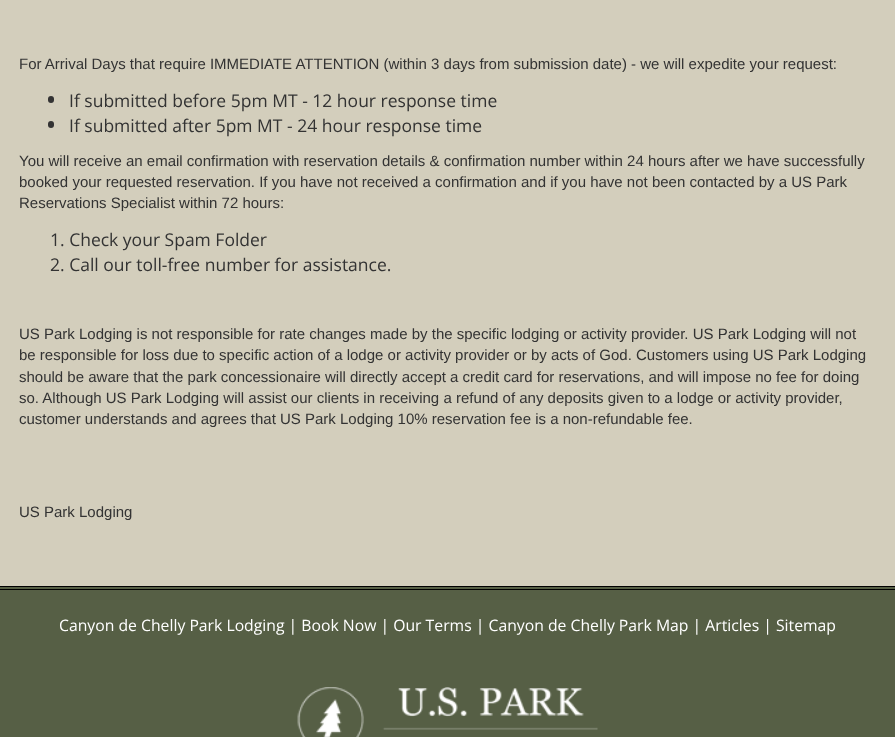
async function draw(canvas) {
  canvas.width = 895
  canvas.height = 737
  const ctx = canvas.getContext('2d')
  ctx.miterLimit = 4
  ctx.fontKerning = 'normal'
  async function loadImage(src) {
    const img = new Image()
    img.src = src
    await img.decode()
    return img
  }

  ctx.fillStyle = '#d3cebc'
  ctx.fillRect(0, 0, 895, 737)
  ctx.font = '15px Liberation Sans'
  ctx.fillStyle = '#333'
  ctx.fillText('For Arrival Days that require IMMEDIATE ATTENTION (within 3 days from submission date) - we will expedite your request:', 19, 69)
  ctx.beginPath()
  ctx.roundRect(48, 96, 6, 7, 3)
  ctx.fill()
  ctx.font = '17.5px Open Sans'
  ctx.fillText('If submitted before 5pm MT - 12 hour response time', 69, 107)
  ctx.beginPath()
  ctx.roundRect(48, 121, 6, 7, 3)
  ctx.fill()
  ctx.fillText('If submitted after 5pm MT - 24 hour response time', 69, 132)
  ctx.font = '15px Liberation Sans'
  ctx.fillText('You will receive an email confirmation with reservation details & confirmation number within 24 hours after we have successfully', 19, 166)
  ctx.fillText('booked your requested reservation. If you have not received a confirmation and if you have not been contacted by a US Park', 19, 187)
  ctx.fillText('Reservations Specialist within 72 hours:', 19, 208)
  ctx.font = '17.5px Open Sans'
  ctx.fillText('1. Check your Spam Folder', 50, 246)
  ctx.fillText('2. Call our toll-free number for assistance.', 50, 271)
  ctx.font = '15px Liberation Sans'
  ctx.fillText('US Park Lodging is not responsible for rate changes made by the specific lodging or activity provider. US Park Lodging will not', 19, 339)
  ctx.fillText('be responsible for loss due to specific action of a lodge or activity provider or by acts of God. Customers using US Park Lodging', 19, 360)
  ctx.fillText('should be aware that the park concessionaire will directly accept a credit card for reservations, and will impose no fee for doing', 19, 382)
  ctx.fillText('so. Although US Park Lodging will assist our clients in receiving a refund of any deposits given to a lodge or activity provider,', 19, 403)
  ctx.fillText('customer understands and agrees that US Park Lodging 10% reservation fee is a non-refundable fee.', 19, 424)
  ctx.fillText('US Park Lodging', 19, 517)
  ctx.fillStyle = '#565f45'
  ctx.fillRect(0, 587, 895, 150)
  ctx.fillStyle = '#000'
  ctx.fillRect(0, 586, 895, 1)
  ctx.fillRect(0, 589, 895, 1)
  ctx.font = '15.75px Open Sans'
  ctx.fillStyle = '#fff'
  ctx.fillText('Canyon de Chelly Park Lodging | Book Now | Our Terms | Canyon de Chelly Park Map | Articles | Sitemap', 59, 631)
  ctx.drawImage(await loadImage('image0.png'), 297, 687, 301, 50)
}

draw(document.querySelector('canvas'))
